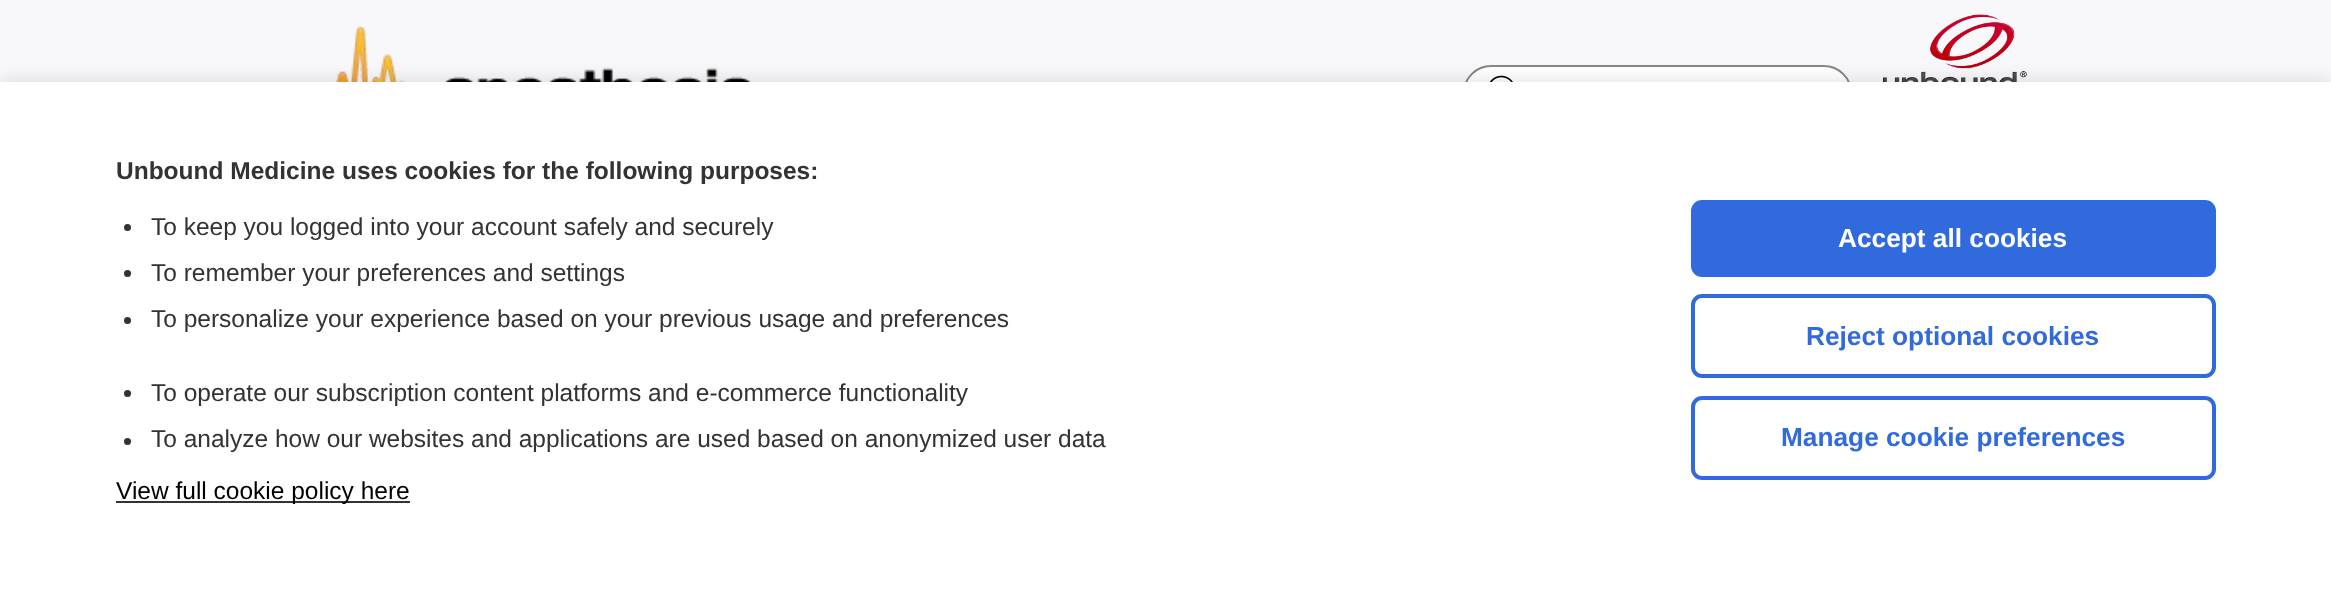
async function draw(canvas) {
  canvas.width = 2331
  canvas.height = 596
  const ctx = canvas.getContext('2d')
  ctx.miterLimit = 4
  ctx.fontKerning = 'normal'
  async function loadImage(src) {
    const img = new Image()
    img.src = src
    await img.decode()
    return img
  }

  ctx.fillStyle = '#f8f8fa'
  ctx.fillRect(0, 0, 2331, 596)
  ctx.drawImage(await loadImage('image0.png'), 335, 26, 416, 56)
  ctx.drawImage(await loadImage('image1.png'), 1883, 14, 144, 68)
  ctx.fillStyle = '#fff'
  ctx.beginPath()
  ctx.roundRect(1464, 66, 387, 54, 27)
  ctx.fill()
  ctx.strokeStyle = '#878787'
  ctx.lineWidth = 2
  ctx.stroke()
  ctx.drawImage(await loadImage('image2.png'), 1489, 75, 24, 7)
  ctx.fillStyle = '#0000001a'
  ctx.filter = 'blur(9px)'
  ctx.beginPath()
  ctx.rect(0, 79, 2331, 514)
  ctx.fill()
  ctx.filter = 'none'
  ctx.fillStyle = '#fff'
  ctx.fillRect(0, 82, 2331, 514)
  ctx.font = 'bold 24.5px Liberation Sans'
  ctx.fillStyle = '#333'
  ctx.fillText('Unbound Medicine uses cookies for the following purposes:', 116, 179)
  ctx.beginPath()
  ctx.arc(127.5, 227.5, 3.5, 0, 2 * Math.PI)
  ctx.fill()
  ctx.font = '24.5px Liberation Sans'
  ctx.fillText('To keep you logged into your account safely and securely', 151, 235)
  ctx.beginPath()
  ctx.arc(127.5, 273.5, 3.5, 0, 2 * Math.PI)
  ctx.fill()
  ctx.fillText('To remember your preferences and settings', 151, 281)
  ctx.beginPath()
  ctx.arc(127.5, 320.5, 3.5, 0, 2 * Math.PI)
  ctx.fill()
  ctx.fillText('To personalize your experience based on your previous usage and preferences', 151, 327)
  ctx.beginPath()
  ctx.arc(127.5, 393.5, 3.5, 0, 2 * Math.PI)
  ctx.fill()
  ctx.fillText('To operate our subscription content platforms and e-commerce functionality', 151, 401)
  ctx.beginPath()
  ctx.arc(127.5, 441.5, 3.5, 0, 2 * Math.PI)
  ctx.fill()
  ctx.fillText('To analyze how our websites and applications are used based on anonymized user data', 151, 447)
  ctx.fillRect(116, 501, 294, 2)
  ctx.fillStyle = '#000'
  ctx.fillText('View full cookie policy here', 116, 499)
  ctx.fillStyle = '#306adc'
  ctx.beginPath()
  ctx.roundRect(1691, 200, 525, 77, 11)
  ctx.fill()
  ctx.font = 'bold 26.25px Liberation Sans'
  ctx.fillStyle = '#fff'
  ctx.fillText('Accept all cookies', 1838, 247)
  ctx.beginPath()
  ctx.roundRect(1693, 296, 521, 80, 9)
  ctx.strokeStyle = '#306adc'
  ctx.lineWidth = 4
  ctx.stroke()
  ctx.fillStyle = '#306adc'
  ctx.fillText('Reject optional cookies', 1806, 345)
  ctx.beginPath()
  ctx.roundRect(1693, 398, 521, 80, 9)
  ctx.stroke()
  ctx.fillText('Manage cookie preferences', 1781, 446)
}

draw(document.querySelector('canvas'))
